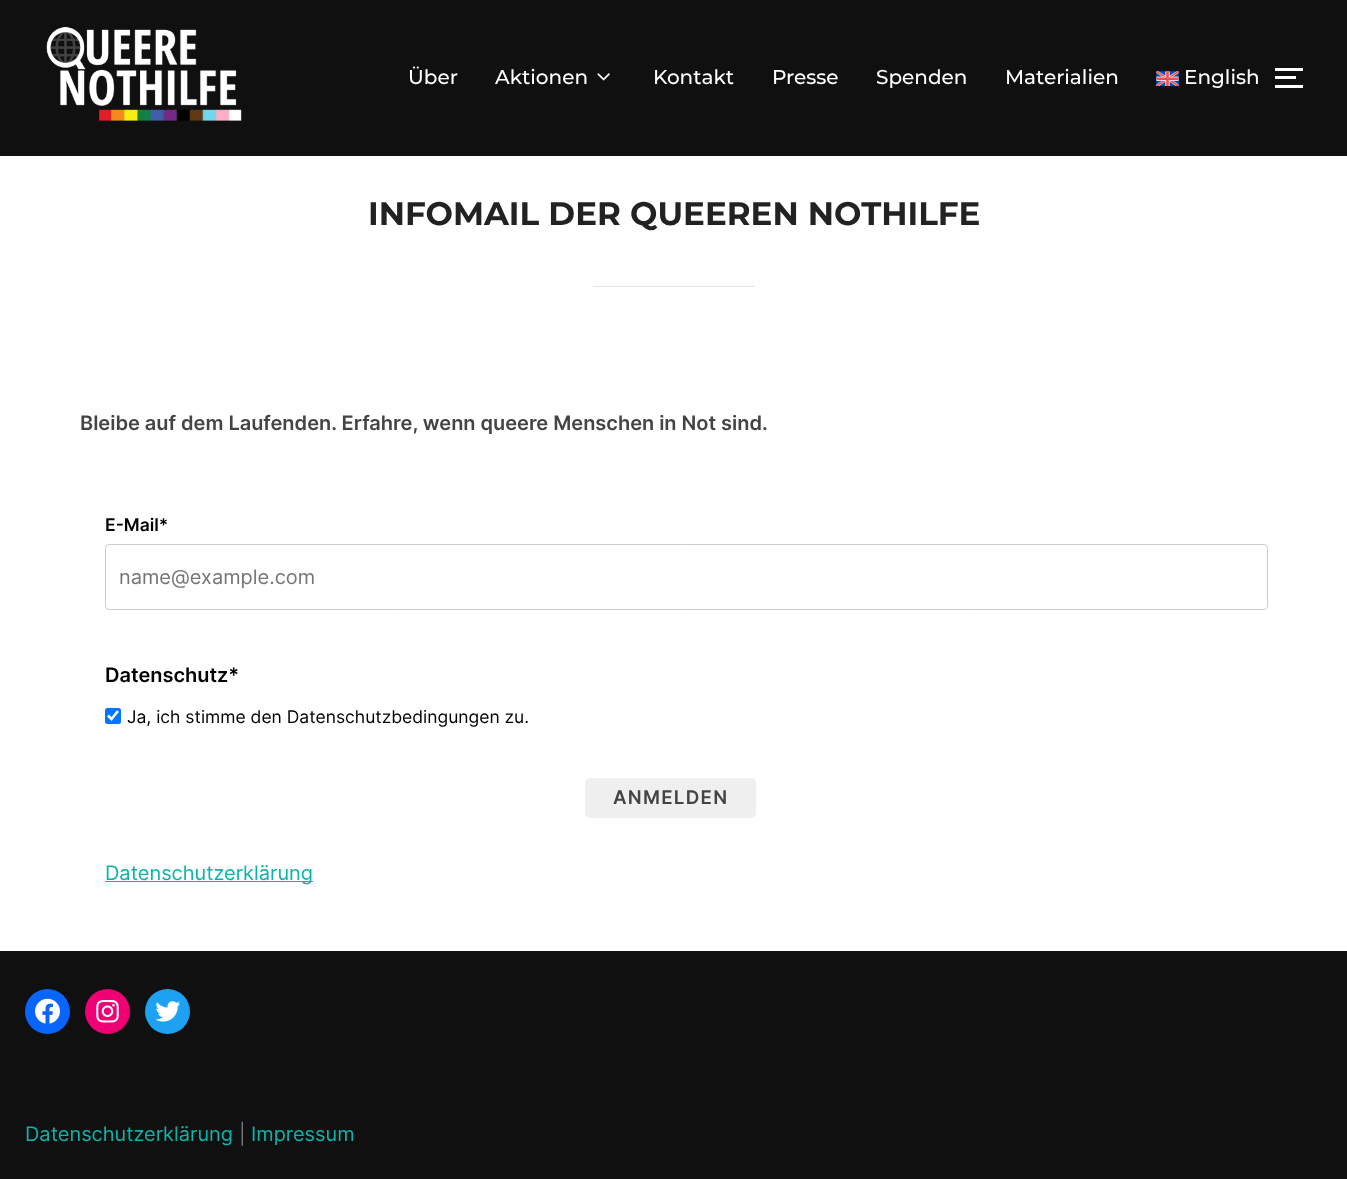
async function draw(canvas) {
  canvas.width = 1347
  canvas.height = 1179
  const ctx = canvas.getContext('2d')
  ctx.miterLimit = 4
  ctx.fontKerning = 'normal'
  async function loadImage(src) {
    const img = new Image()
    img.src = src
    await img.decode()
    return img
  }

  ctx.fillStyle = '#fff'
  ctx.fillRect(0, 0, 1347, 1179)
  ctx.fillStyle = '#101010'
  ctx.fillRect(0, 0, 1347, 156)
  ctx.drawImage(await loadImage('image0.png'), 46, 27, 196, 94)
  ctx.font = '500 20px Montserrat'
  ctx.fillStyle = '#fff'
  ctx.fillText('Über', 408, 84)
  ctx.fillText('Aktionen', 495, 84)
  ctx.drawImage(await loadImage('image1.png'), 597, 73, 13, 8)
  ctx.fillText('Kontakt', 653, 84)
  ctx.fillText('Presse', 772, 84)
  ctx.fillText('Spenden', 876, 84)
  ctx.fillText('Materialien', 1005, 84)
  ctx.drawImage(await loadImage('image2.png'), 1156, 71, 23, 15)
  ctx.fillText('English', 1184, 84)
  ctx.fillRect(1275, 68, 28, 3)
  ctx.fillRect(1275, 76, 21, 3)
  ctx.fillRect(1275, 85, 28, 3)
  ctx.font = 'bold 32.5px Montserrat'
  ctx.fillStyle = '#222'
  ctx.fillText('INFOMAIL DER QUEEREN NOTHILFE', 368, 225)
  ctx.fillStyle = '#e6e6e6'
  ctx.fillRect(593, 286, 162, 1)
  ctx.font = '600 20px Inter'
  ctx.fillStyle = '#444'
  ctx.fillText('Bleibe auf dem Laufenden. Erfahre, wenn queere Menschen in Not sind.', 80, 430)
  ctx.font = '600 17.5px Inter'
  ctx.fillStyle = '#000'
  ctx.fillText('E-Mail*', 105, 531)
  ctx.beginPath()
  ctx.roundRect(105.5, 544.5, 1162, 65, 3.5)
  ctx.strokeStyle = '#ccc'
  ctx.stroke()
  ctx.font = '20px Inter'
  ctx.fillStyle = '#757575'
  ctx.fillText('name@example.com', 119, 584)
  ctx.font = '600 20px Inter'
  ctx.fillStyle = '#000'
  ctx.fillText('Datenschutz*', 105, 682)
  ctx.fillStyle = '#0075ff'
  ctx.beginPath()
  ctx.roundRect(105, 708, 16, 16, 2.5)
  ctx.fill()
  ctx.beginPath()
  ctx.moveTo(108, 715.5)
  ctx.lineTo(111.5, 719)
  ctx.lineTo(118, 711)
  ctx.strokeStyle = '#fff'
  ctx.lineWidth = 2.6
  ctx.stroke()
  ctx.font = '17.5px Inter'
  ctx.fillStyle = '#000'
  ctx.fillText('Ja, ich stimme den Datenschutzbedingungen zu.', 127, 723)
  ctx.fillStyle = '#efefef'
  ctx.beginPath()
  ctx.roundRect(585, 778, 171, 40, 5)
  ctx.fill()
  ctx.letterSpacing = '1.25px'
  ctx.font = '600 18.75px Inter'
  ctx.fillStyle = '#444'
  ctx.fillText('ANMELDEN', 613, 804)
  ctx.fillStyle = '#0bb4aa'
  ctx.fillRect(105, 881, 208, 1)
  ctx.letterSpacing = '0px'
  ctx.font = '20px Inter'
  ctx.fillText('Datenschutzerklärung', 105, 880)
  ctx.fillStyle = '#101010'
  ctx.fillRect(0, 951, 1347, 228)
  ctx.fillStyle = '#0866ff'
  ctx.beginPath()
  ctx.arc(47.5, 1011.5, 22.5, 0, 2 * Math.PI)
  ctx.fill()
  ctx.drawImage(await loadImage('image3.png'), 35, 998, 25, 26)
  ctx.fillStyle = '#f00075'
  ctx.beginPath()
  ctx.arc(107.5, 1011.5, 22.5, 0, 2 * Math.PI)
  ctx.fill()
  ctx.drawImage(await loadImage('image4.png'), 96, 1000, 23, 23)
  ctx.fillStyle = '#1da1f2'
  ctx.beginPath()
  ctx.arc(167.5, 1011.5, 22.5, 0, 2 * Math.PI)
  ctx.fill()
  ctx.drawImage(await loadImage('image5.png'), 155, 1001, 26, 21)
  ctx.fillStyle = '#0bb4aa'
  ctx.fillText('Datenschutzerklärung', 25, 1141)
  ctx.fillStyle = '#78787f'
  ctx.fillText('|', 239, 1141)
  ctx.fillStyle = '#0bb4aa'
  ctx.fillText('Impressum', 251, 1141)
}

draw(document.querySelector('canvas'))
